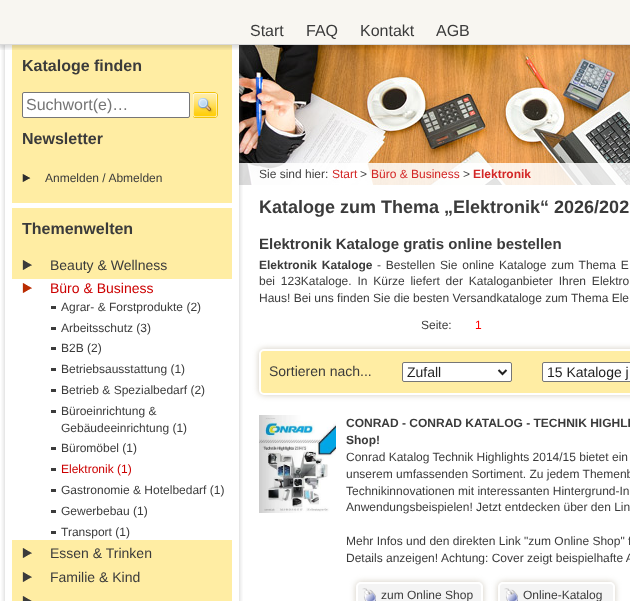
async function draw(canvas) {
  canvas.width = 630
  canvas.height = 601
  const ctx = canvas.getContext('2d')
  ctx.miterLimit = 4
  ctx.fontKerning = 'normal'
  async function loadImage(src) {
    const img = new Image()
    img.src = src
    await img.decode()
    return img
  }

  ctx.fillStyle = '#fff'
  ctx.fillRect(0, 0, 630, 601)
  ctx.drawImage(await loadImage('image7.png'), 239, 45, 391, 140)
  ctx.fillStyle = '#ffffffd9'
  ctx.fillRect(239, 163, 391, 22)
  ctx.drawImage(await loadImage('image1.png'), 1, 45, 242, 556)
  ctx.drawImage(await loadImage('image0.png'), 0, 0, 630, 50)
  ctx.font = '16px Liberation Sans'
  ctx.fillStyle = '#3b3b3b'
  ctx.fillText('Start', 250, 36)
  ctx.fillText('FAQ', 306, 36)
  ctx.fillText('Kontakt', 360, 36)
  ctx.fillText('AGB', 436, 36)
  ctx.font = 'bold 16px Liberation Sans'
  ctx.fillText('Kataloge finden', 22, 71)
  ctx.fillStyle = '#fff'
  ctx.beginPath()
  ctx.roundRect(22.5, 92.5, 167, 25, 1.5)
  ctx.fill()
  ctx.strokeStyle = '#767676'
  ctx.stroke()
  ctx.font = '16px Liberation Sans'
  ctx.fillStyle = '#757575'
  ctx.fillText('Suchwort(e)…', 26, 110)
  ctx.drawImage(await loadImage('image2.png'), 193, 92, 25, 26)
  ctx.font = 'bold 16px Liberation Sans'
  ctx.fillStyle = '#3b3b3b'
  ctx.fillText('Newsletter', 22, 144)
  ctx.drawImage(await loadImage('image3.png'), 22, 174, 9, 8)
  ctx.font = '12px Liberation Sans'
  ctx.fillText('Anmelden / Abmelden', 45, 182)
  ctx.fillStyle = '#fff'
  ctx.fillRect(10, 203, 225, 5)
  ctx.font = 'bold 16px Liberation Sans'
  ctx.fillStyle = '#3b3b3b'
  ctx.fillText('Themenwelten', 22, 234)
  ctx.drawImage(await loadImage('image4.png'), 22, 260, 10, 10)
  ctx.font = '14px Liberation Sans'
  ctx.fillText('Beauty & Wellness', 50, 270)
  ctx.fillStyle = '#fff'
  ctx.fillRect(12, 279, 220, 261)
  ctx.drawImage(await loadImage('image5.png'), 22, 283, 10, 10)
  ctx.fillStyle = '#c00'
  ctx.fillText('Büro & Business', 50, 293)
  ctx.fillStyle = '#3b3b3b'
  ctx.fillRect(51, 306, 5, 3)
  ctx.font = '12px Liberation Sans'
  ctx.fillText('Agrar- & Forstprodukte (2)', 61, 311)
  ctx.fillRect(51, 327, 5, 3)
  ctx.fillText('Arbeitsschutz (3)', 61, 332)
  ctx.fillRect(51, 347, 5, 3)
  ctx.fillText('B2B (2)', 61, 352)
  ctx.fillRect(51, 368, 5, 3)
  ctx.fillText('Betriebsausstattung (1)', 61, 373)
  ctx.fillRect(51, 389, 5, 3)
  ctx.fillText('Betrieb & Spezialbedarf (2)', 61, 394)
  ctx.fillRect(51, 410, 5, 3)
  ctx.fillText('Büroeinrichtung &', 61, 415)
  ctx.fillText('Gebäudeeinrichtung (1)', 61, 432)
  ctx.fillRect(51, 447, 5, 3)
  ctx.fillText('Büromöbel (1)', 61, 452)
  ctx.fillRect(51, 468, 5, 3)
  ctx.fillStyle = '#c00'
  ctx.fillText('Elektronik (1)', 61, 473)
  ctx.fillStyle = '#3b3b3b'
  ctx.fillRect(51, 489, 5, 3)
  ctx.fillText('Gastronomie & Hotelbedarf (1)', 61, 494)
  ctx.fillRect(51, 510, 5, 3)
  ctx.fillText('Gewerbebau (1)', 61, 515)
  ctx.fillRect(51, 531, 5, 3)
  ctx.fillText('Transport (1)', 61, 536)
  ctx.drawImage(await loadImage('image4.png'), 22, 548, 10, 10)
  ctx.font = '14px Liberation Sans'
  ctx.fillText('Essen & Trinken', 50, 558)
  ctx.drawImage(await loadImage('image4.png'), 22, 572, 10, 10)
  ctx.fillText('Familie & Kind', 50, 582)
  ctx.drawImage(await loadImage('image6.png'), 22, 596, 10, 5)
  ctx.font = '12px Liberation Sans'
  ctx.fillStyle = '#434343'
  ctx.fillText('Sie sind hier:', 259, 178)
  ctx.fillStyle = '#d32626'
  ctx.fillText('Start', 332, 178)
  ctx.fillStyle = '#434343'
  ctx.fillText('>', 360, 178)
  ctx.fillStyle = '#d32626'
  ctx.fillText('Büro & Business', 371, 178)
  ctx.fillStyle = '#434343'
  ctx.fillText('>', 463, 178)
  ctx.font = 'bold 12px Liberation Sans'
  ctx.fillStyle = '#d32626'
  ctx.fillText('Elektronik', 473, 178)
  ctx.font = 'bold 18px Liberation Sans'
  ctx.fillStyle = '#3b3b3b'
  ctx.fillText('Kataloge zum Thema „Elektronik“ 2026/202', 259, 213)
  ctx.font = 'bold 15px Liberation Sans'
  ctx.fillText('Elektronik Kataloge gratis online bestellen', 259, 249)
  ctx.wordSpacing = '1.5px'
  ctx.font = 'bold 12px Liberation Sans'
  ctx.fillText('Elektronik Kataloge', 259, 269)
  ctx.font = '12px Liberation Sans'
  ctx.fillText('- Bestellen Sie online Kataloge zum Thema E', 377, 269)
  ctx.wordSpacing = '2.5px'
  ctx.fillText('bei 123Kataloge. In Kürze liefert der Kataloganbieter Ihren Elektro', 259, 285)
  ctx.wordSpacing = '0px'
  ctx.fillText('Haus! Bei uns finden Sie die besten Versandkataloge zum Thema Ele', 259, 302)
  ctx.fillText('Seite:', 421, 329)
  ctx.fillStyle = '#f00'
  ctx.fillText('1', 475, 329)
  ctx.fillStyle = '#d1cbbf'
  ctx.filter = 'blur(3px)'
  ctx.beginPath()
  ctx.roundRect(259, 349, 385, 46, 5)
  ctx.fill()
  ctx.filter = 'none'
  ctx.fillStyle = '#ffeda3'
  ctx.beginPath()
  ctx.roundRect(260, 350, 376, 44, 4)
  ctx.fill()
  ctx.strokeStyle = '#fff'
  ctx.lineWidth = 2
  ctx.stroke()
  ctx.font = '14px Liberation Sans'
  ctx.fillStyle = '#3b3b3b'
  ctx.fillText('Sortieren nach...', 269, 376)
  ctx.fillStyle = '#fff'
  ctx.beginPath()
  ctx.roundRect(402.5, 362.5, 109, 19, 1.5)
  ctx.fill()
  ctx.strokeStyle = '#767676'
  ctx.lineWidth = 1
  ctx.stroke()
  ctx.beginPath()
  ctx.moveTo(498.5, 370)
  ctx.lineTo(502.5, 374)
  ctx.lineTo(506.5, 370)
  ctx.strokeStyle = '#222'
  ctx.lineWidth = 2
  ctx.stroke()
  ctx.fillStyle = '#222'
  ctx.fillText('Zufall', 407, 377)
  ctx.fillStyle = '#fff'
  ctx.beginPath()
  ctx.roundRect(542.5, 362.5, 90, 19, 1.5)
  ctx.fill()
  ctx.strokeStyle = '#767676'
  ctx.lineWidth = 1
  ctx.stroke()
  ctx.fillStyle = '#222'
  ctx.fillText('15 Kataloge j', 547, 377)
  ctx.drawImage(await loadImage('image8.png'), 259, 415, 77, 98)
  ctx.font = 'bold 12px Liberation Sans'
  ctx.fillStyle = '#3b3b3b'
  ctx.fillText('CONRAD - CONRAD KATALOG - TECHNIK HIGHLI', 346, 427)
  ctx.fillText('Shop!', 346, 444)
  ctx.font = '12px Liberation Sans'
  ctx.fillText('Conrad Katalog Technik Highlights 2014/15 bietet ein', 346, 461)
  ctx.fillText('unserem umfassenden Sortiment. Zu jedem Themenb', 346, 478)
  ctx.fillText('Technikinnovationen mit interessanten Hintergrund-In', 346, 495)
  ctx.fillText('Anwendungsbeispielen! Jetzt entdecken über den Lin', 346, 511)
  ctx.fillText('Mehr Infos und den direkten Link "zum Online Shop" f', 346, 545)
  ctx.fillText('Details anzeigen!', 346, 562)
  ctx.fillText('Achtung: Cover zeigt beispielhafte A', 441, 562)
  ctx.fillStyle = '#d1cbbf'
  ctx.filter = 'blur(3px)'
  ctx.beginPath()
  ctx.roundRect(356, 582, 127, 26, 5)
  ctx.fill()
  ctx.filter = 'none'
  ctx.fillStyle = '#f4f4f4'
  ctx.beginPath()
  ctx.roundRect(356, 582, 127, 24, 5)
  ctx.fill()
  ctx.drawImage(await loadImage('image9.png'), 362, 588, 14, 13)
  ctx.beginPath()
  ctx.roundRect(357, 583, 125, 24, 4)
  ctx.strokeStyle = '#fff'
  ctx.lineWidth = 2
  ctx.stroke()
  ctx.fillStyle = '#3b3b3b'
  ctx.fillText('zum Online Shop', 381, 599)
  ctx.fillStyle = '#d1cbbf'
  ctx.filter = 'blur(3px)'
  ctx.beginPath()
  ctx.roundRect(498, 582, 117, 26, 5)
  ctx.fill()
  ctx.filter = 'none'
  ctx.fillStyle = '#f4f4f4'
  ctx.beginPath()
  ctx.roundRect(498, 582, 117, 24, 5)
  ctx.fill()
  ctx.drawImage(await loadImage('image9.png'), 504, 588, 14, 13)
  ctx.beginPath()
  ctx.roundRect(499, 583, 115, 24, 4)
  ctx.stroke()
  ctx.fillStyle = '#3b3b3b'
  ctx.fillText('Online-Katalog', 523, 599)
}

draw(document.querySelector('canvas'))
